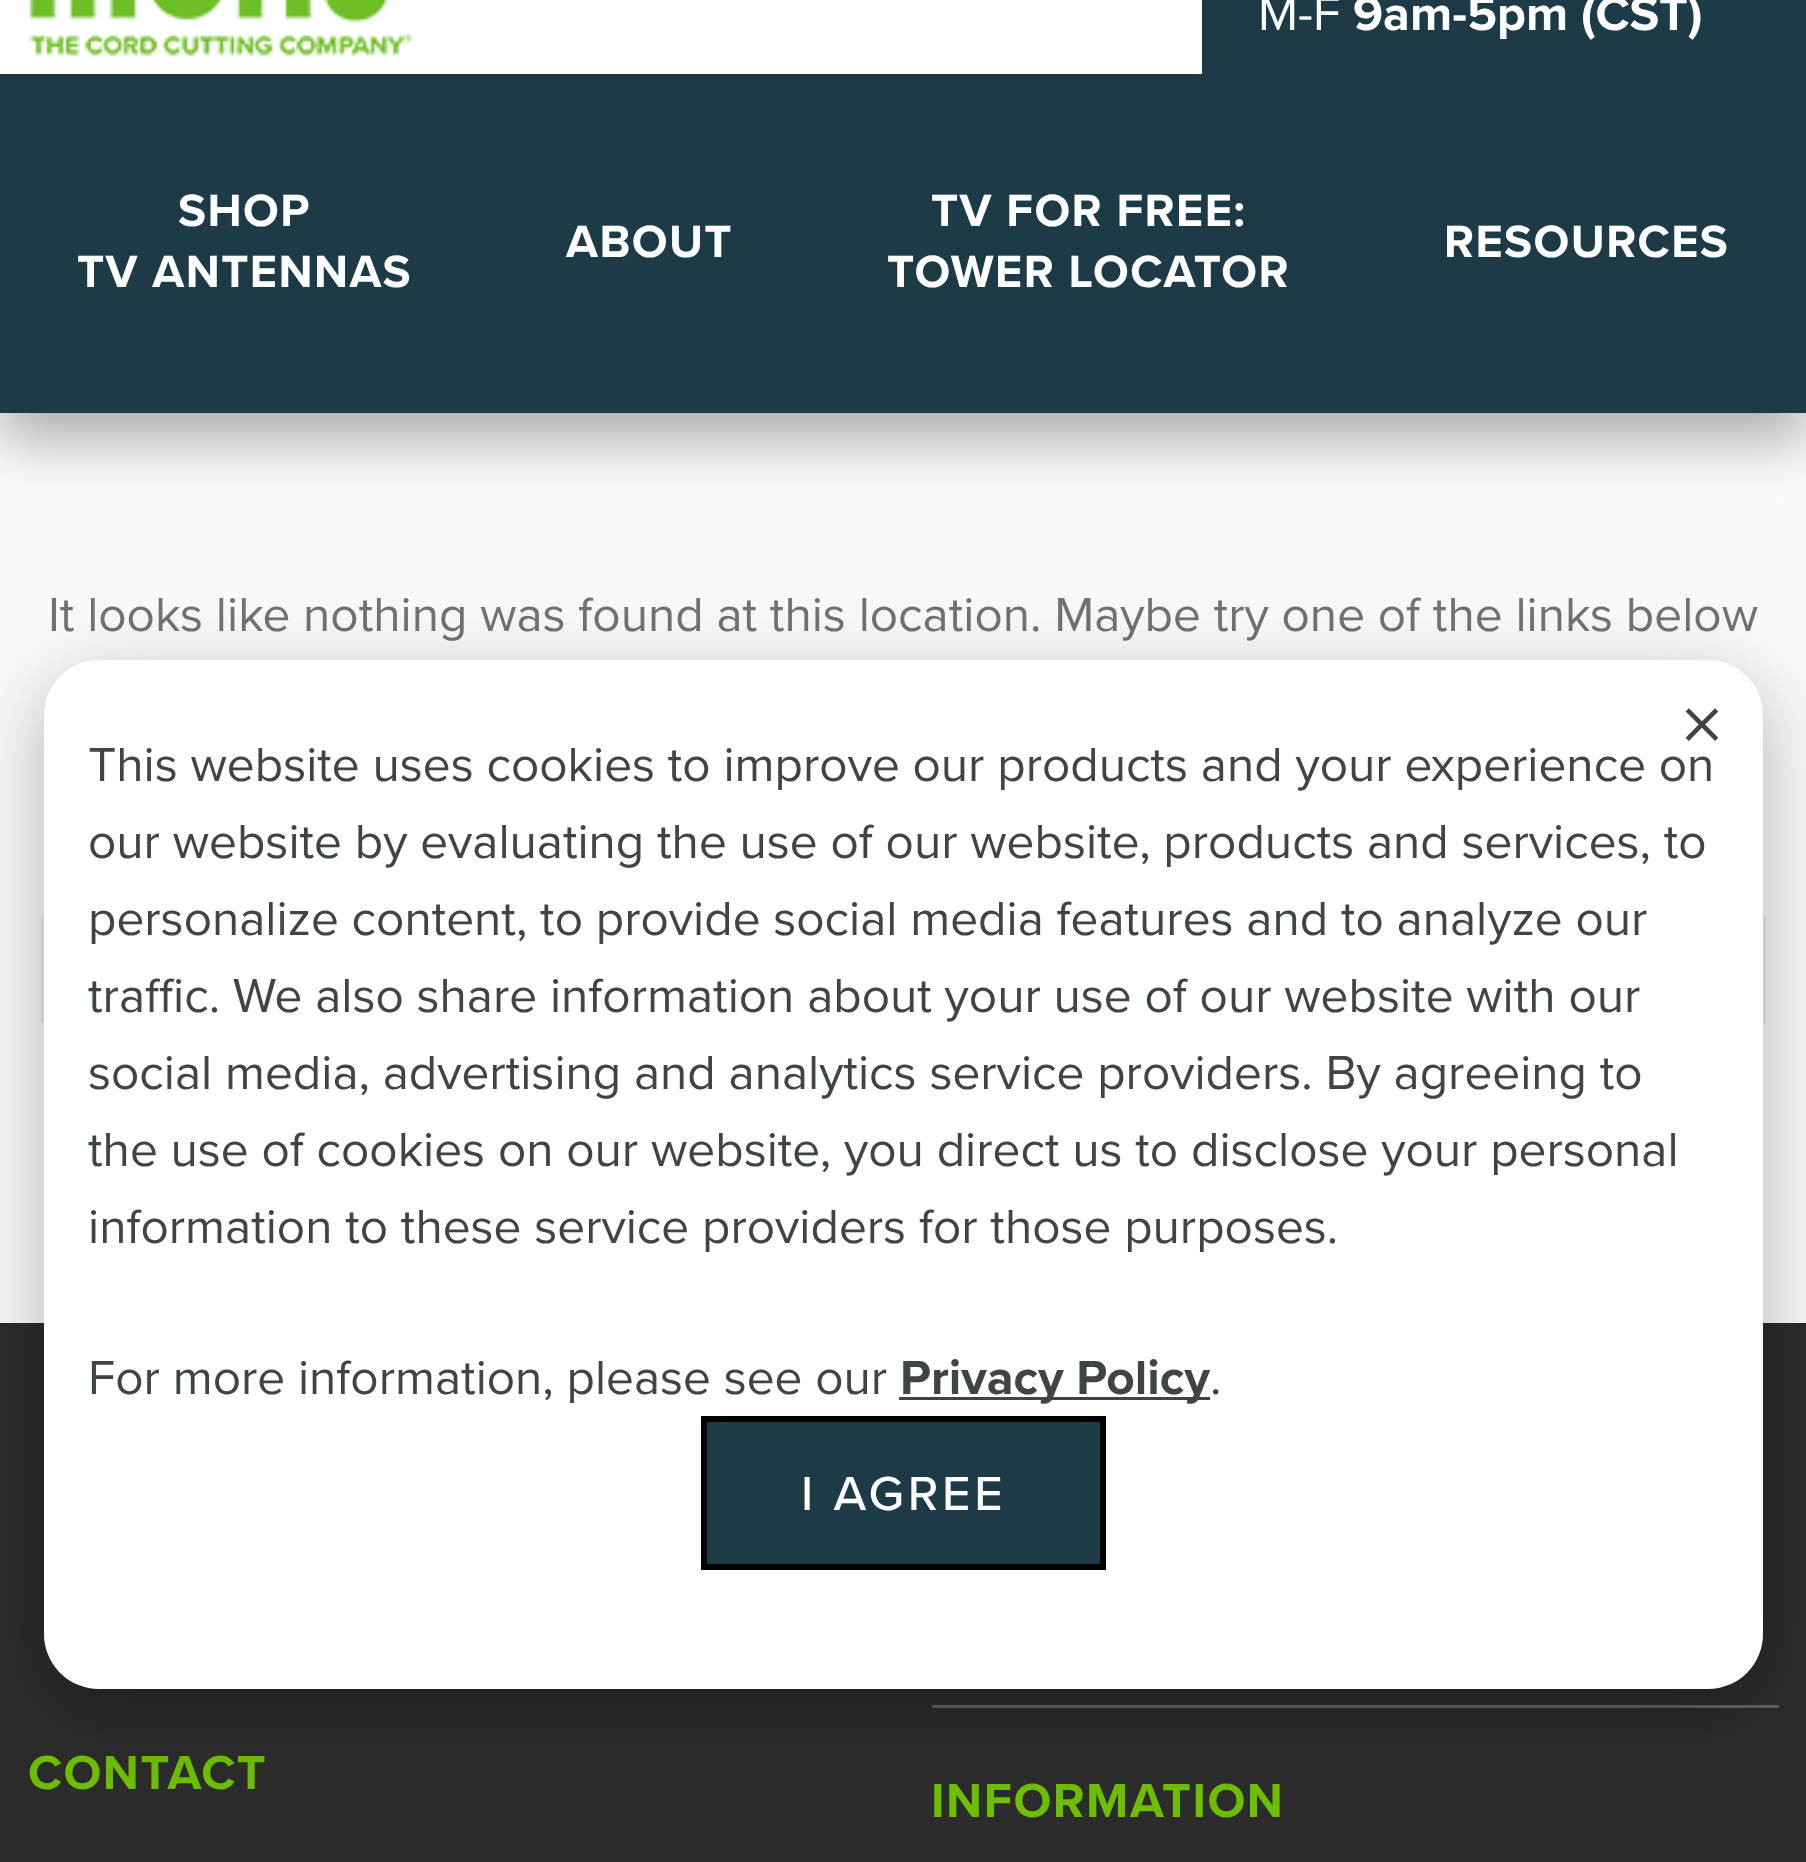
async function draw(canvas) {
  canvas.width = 1806
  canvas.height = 1862
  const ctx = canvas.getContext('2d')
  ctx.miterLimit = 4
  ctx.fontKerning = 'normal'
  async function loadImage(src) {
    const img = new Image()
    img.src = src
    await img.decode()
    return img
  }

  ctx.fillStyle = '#f9f9f9'
  ctx.fillRect(0, 0, 1806, 1862)
  ctx.fillStyle = '#0000004d'
  ctx.filter = 'blur(27.5px)'
  ctx.beginPath()
  ctx.rect(0, -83, 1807, 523)
  ctx.fill()
  ctx.filter = 'none'
  ctx.fillStyle = '#fff'
  ctx.fillRect(0, 0, 1202, 74)
  ctx.drawImage(await loadImage('image0.png'), 29, 0, 385, 56)
  ctx.fillStyle = '#1d3b47'
  ctx.fillRect(1202, 0, 604, 74)
  ctx.font = '49.5px Proxima Nova'
  ctx.fillStyle = '#fff'
  ctx.fillText('M-F', 1258, 30)
  ctx.font = 'bold 49.5px Proxima Nova'
  ctx.fillText('9am-5pm (CST)', 1353, 30)
  ctx.fillStyle = '#1d3b47'
  ctx.fillRect(0, 74, 1806, 339)
  ctx.letterSpacing = '1.4px'
  ctx.font = 'bold 46.75px Proxima Nova'
  ctx.fillStyle = '#fff'
  ctx.fillText('SHOP', 178, 226)
  ctx.fillText('TV ANTENNAS', 77, 287)
  ctx.fillText('ABOUT', 566, 257)
  ctx.fillText('TV FOR FREE:', 931, 226)
  ctx.fillText('TOWER LOCATOR', 887, 287)
  ctx.fillText('RESOURCES', 1444, 257)
  ctx.letterSpacing = '0px'
  ctx.font = '49.5px Proxima Nova'
  ctx.fillStyle = '#727272'
  ctx.fillText('It looks like nothing was found at this location. Maybe try one of the links below', 48, 631)
  ctx.strokeStyle = '#e9e9e9'
  ctx.lineWidth = 6
  ctx.strokeRect(44, 919, 1719, 101)
  ctx.fillStyle = '#2c2c2c'
  ctx.fillRect(0, 1323, 1806, 539)
  ctx.letterSpacing = '1.5px'
  ctx.font = 'bold 49.5px Proxima Nova'
  ctx.fillStyle = '#6dbe00'
  ctx.fillText('CONTACT', 28, 1789)
  ctx.fillStyle = '#626262'
  ctx.fillRect(932, 1705, 847, 3)
  ctx.fillStyle = '#6dbe00'
  ctx.fillText('INFORMATION', 931, 1817)
  ctx.fillStyle = '#00000047'
  ctx.filter = 'blur(38.5px)'
  ctx.beginPath()
  ctx.roundRect(44, 682, 1719, 1029, 55)
  ctx.fill()
  ctx.filter = 'none'
  ctx.fillStyle = '#fff'
  ctx.beginPath()
  ctx.roundRect(44, 660, 1719, 1029, 55)
  ctx.fill()
  ctx.letterSpacing = '0px'
  ctx.font = '88px Proxima Nova'
  ctx.fillStyle = '#3e4543'
  ctx.fillText('×', 1680, 754)
  ctx.font = '49.5px Proxima Nova'
  ctx.fillText('This website uses cookies to improve our products and your experience on', 88, 781)
  ctx.fillText('our website by evaluating the use of our website, products and services, to', 88, 858)
  ctx.fillText('personalize content, to provide social media features and to analyze our', 88, 935)
  ctx.fillText('traffic. We also share information about your use of our website with our', 88, 1012)
  ctx.fillText('social media, advertising and analytics service providers. By agreeing to', 88, 1089)
  ctx.fillText('the use of cookies on our website, you direct us to disclose your personal', 88, 1166)
  ctx.fillText('information to these service providers for those purposes.', 88, 1243)
  ctx.fillText('For more information, please see our', 88, 1394)
  ctx.fillRect(899, 1397, 311, 3)
  ctx.font = 'bold 49.5px Proxima Nova'
  ctx.fillText('Privacy Policy', 900, 1394)
  ctx.font = '49.5px Proxima Nova'
  ctx.fillText('.', 1210, 1394)
  ctx.fillStyle = '#1d3b47'
  ctx.beginPath()
  ctx.rect(704, 1419, 399, 148)
  ctx.fill()
  ctx.strokeStyle = '#000'
  ctx.stroke()
  ctx.letterSpacing = '3.75px'
  ctx.font = '500 49.5px Proxima Nova'
  ctx.fillStyle = '#fff'
  ctx.fillText('I AGREE', 801, 1510)
}

draw(document.querySelector('canvas'))
